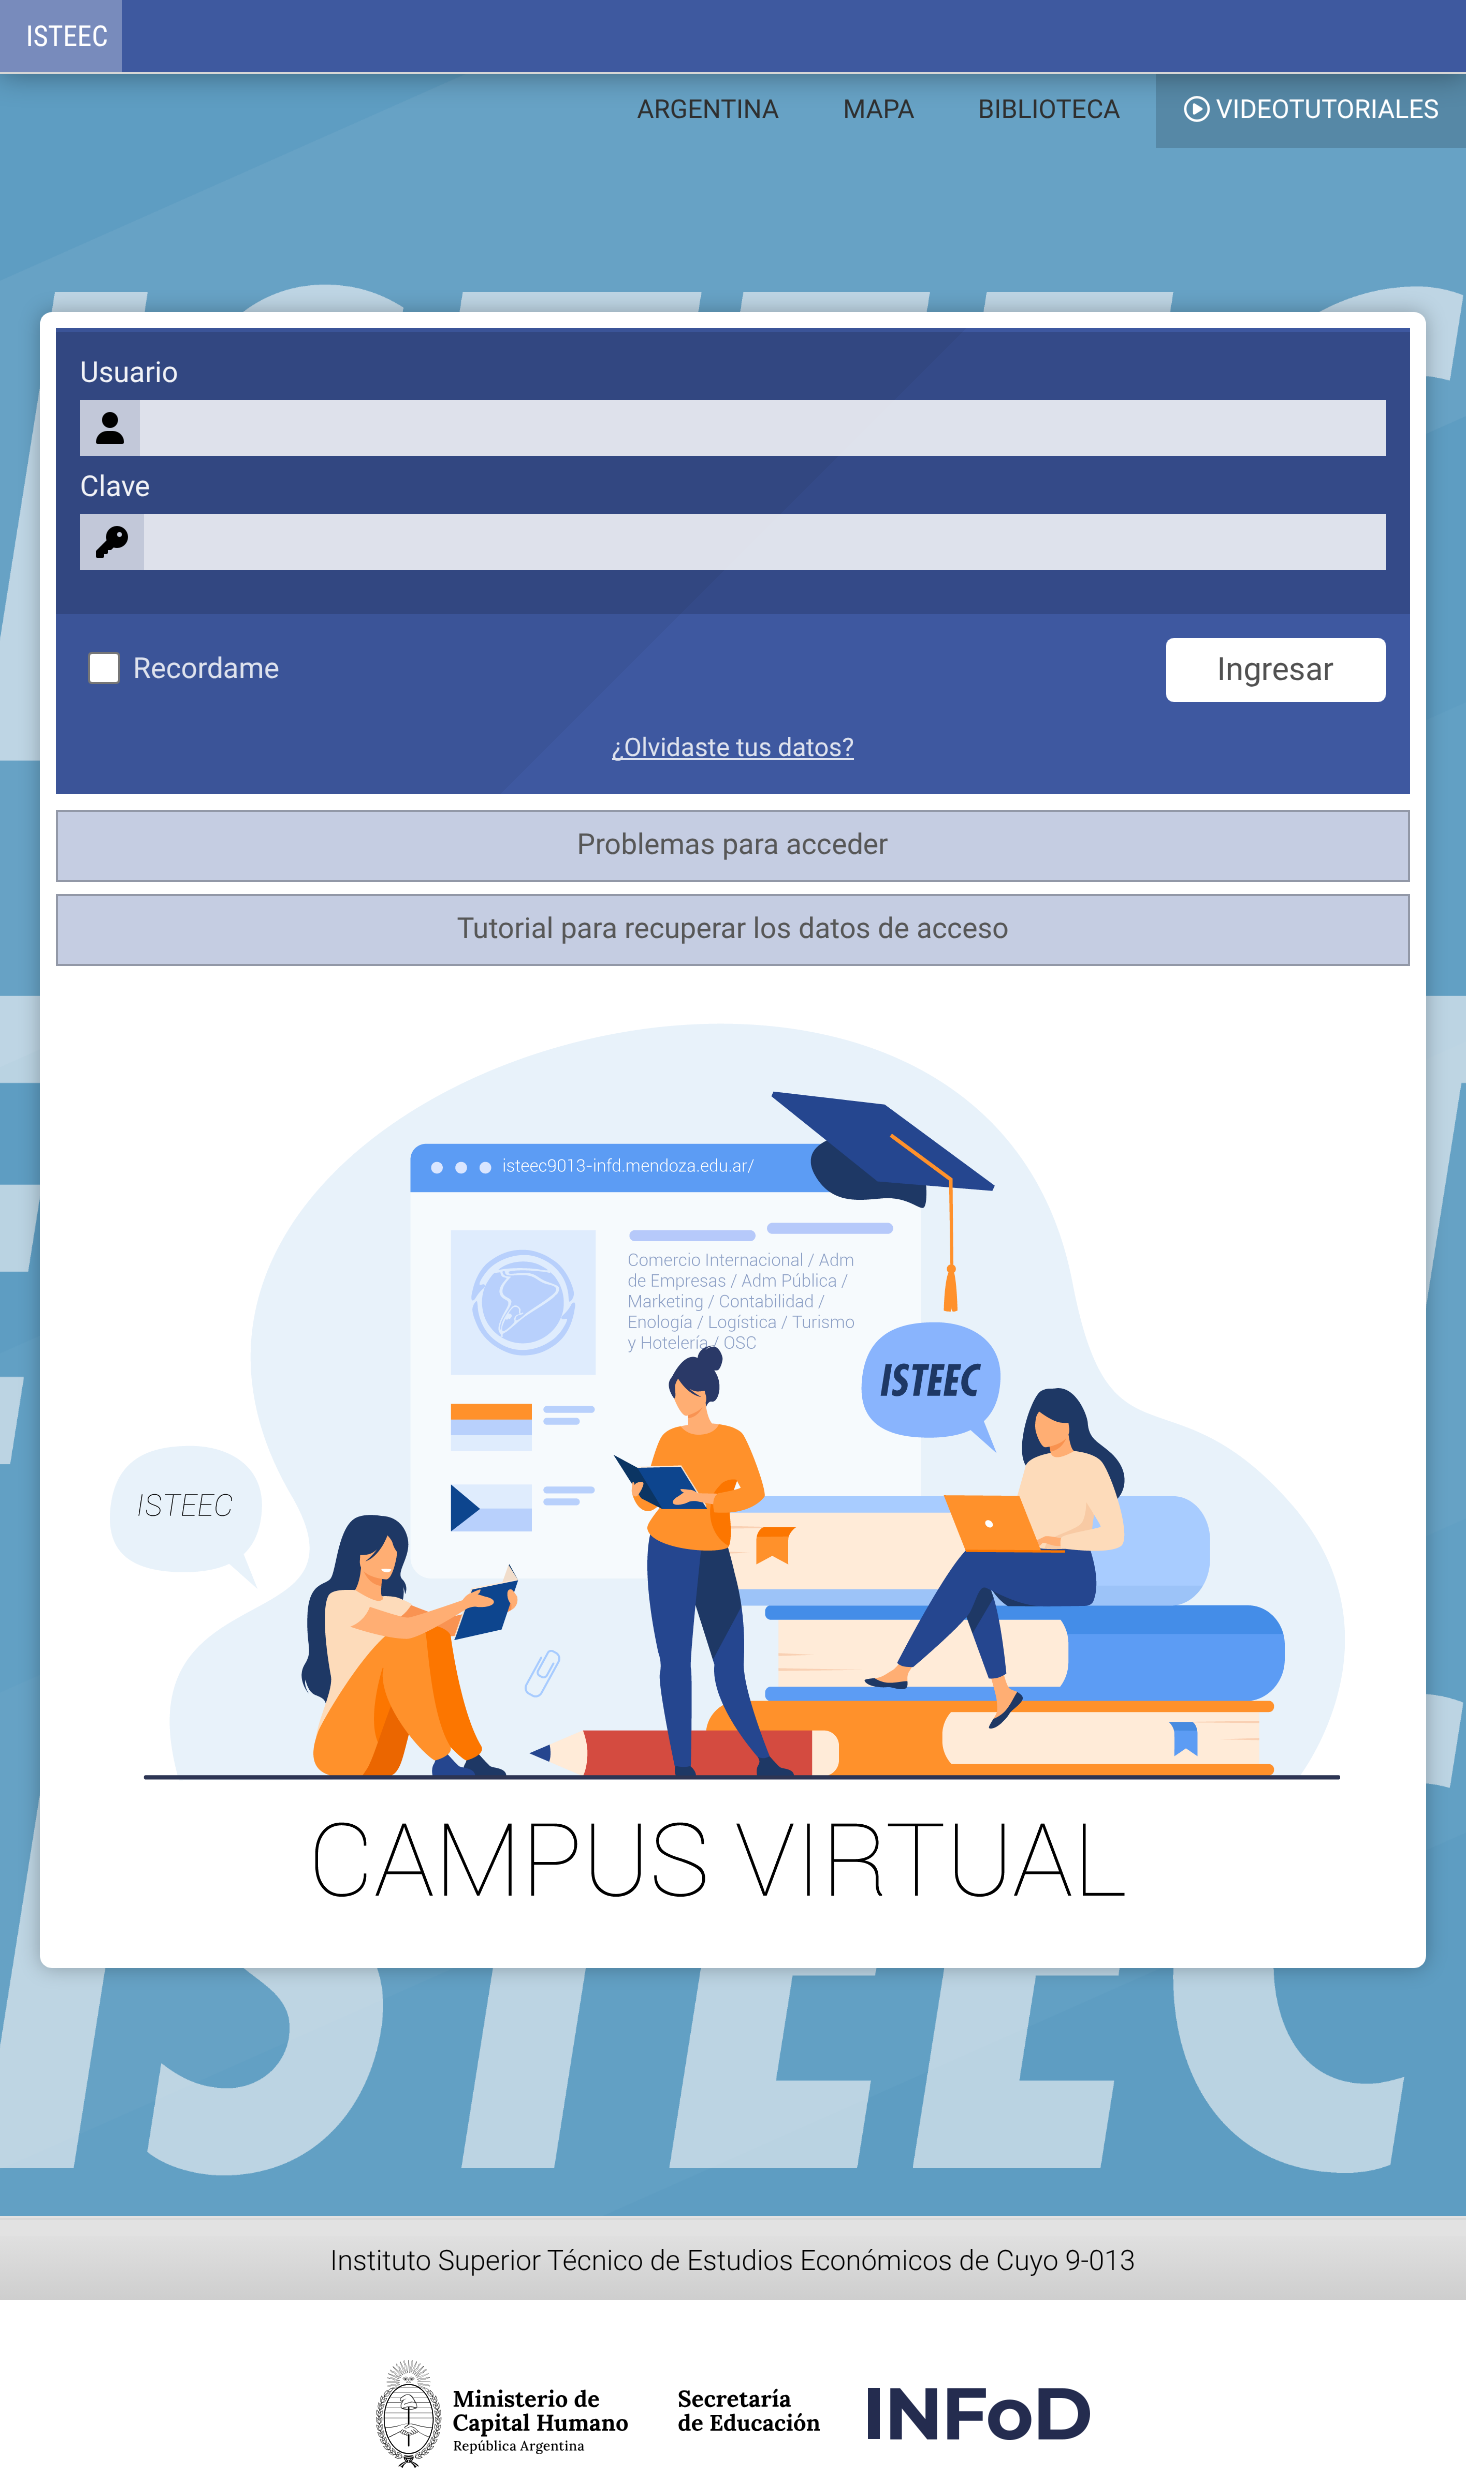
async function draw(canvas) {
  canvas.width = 1466
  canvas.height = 2473
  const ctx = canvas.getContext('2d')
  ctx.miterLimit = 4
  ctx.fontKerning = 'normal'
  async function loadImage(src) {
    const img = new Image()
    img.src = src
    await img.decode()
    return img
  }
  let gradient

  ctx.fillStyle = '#e2e2e2'
  ctx.fillRect(0, 0, 1466, 2473)
  ctx.drawImage(await loadImage('image0.png'), 0, 74, 1466, 2142)
  ctx.fillStyle = '#5688a6'
  ctx.fillRect(1156, 74, 310, 74)
  ctx.drawImage(await loadImage('image1.png'), 1184, 96, 26, 26)
  ctx.fillStyle = '#00000066'
  ctx.filter = 'blur(15px)'
  ctx.beginPath()
  ctx.rect(0, 0, 1466, 74)
  ctx.fill()
  ctx.filter = 'none'
  ctx.fillStyle = '#3e599f'
  ctx.fillRect(122, 0, 1344, 72)
  ctx.fillStyle = '#d6d6d6'
  ctx.fillRect(0, 72, 1466, 2)
  ctx.fillStyle = '#788bbc'
  ctx.fillRect(0, 0, 122, 72)
  ctx.font = '28.75px Roboto Condensed'
  ctx.fillStyle = '#fff'
  ctx.fillText('ISTEEC', 26, 46)
  ctx.font = '26px Roboto'
  ctx.fillStyle = '#2f2f2f'
  ctx.fillText('ARGENTINA', 637, 118)
  ctx.fillText('MAPA', 843, 118)
  ctx.fillText('BIBLIOTECA', 978, 118)
  ctx.fillStyle = '#fff'
  ctx.fillText('VIDEOTUTORIALES', 1216, 118)
  ctx.fillStyle = '#00000045'
  ctx.filter = 'blur(10px)'
  ctx.beginPath()
  ctx.roundRect(40, 312, 1386, 1656, 12)
  ctx.fill()
  ctx.filter = 'none'
  ctx.fillStyle = '#fff'
  ctx.beginPath()
  ctx.roundRect(40, 312, 1386, 1656, 12)
  ctx.fill()
  gradient = ctx.createLinearGradient(1188, 1016, 278, 106)
  gradient.addColorStop(0.5, '#3e58a0')
  gradient.addColorStop(0.5, '#3b5498')
  ctx.fillStyle = gradient
  ctx.fillRect(56, 328, 1354, 466)
  ctx.fillStyle = '#00000026'
  ctx.fillRect(56, 332, 1354, 282)
  ctx.font = '28.75px Roboto'
  ctx.fillStyle = '#f1f2f6'
  ctx.fillText('Usuario', 80, 382)
  ctx.fillStyle = '#c2c8d9'
  ctx.fillRect(80, 400, 60, 56)
  ctx.drawImage(await loadImage('image2.png'), 96, 412, 28, 32)
  ctx.fillStyle = '#ffffffd6'
  ctx.fillRect(140, 400, 1246, 56)
  ctx.fillStyle = '#f1f2f6'
  ctx.fillText('Clave', 80, 496)
  ctx.fillStyle = '#c2c8d9'
  ctx.fillRect(80, 514, 64, 56)
  ctx.drawImage(await loadImage('image3.png'), 96, 526, 32, 32)
  ctx.fillStyle = '#ffffffd6'
  ctx.fillRect(144, 514, 1242, 56)
  ctx.fillStyle = '#fff'
  ctx.beginPath()
  ctx.roundRect(89, 653, 30, 30, 3)
  ctx.fill()
  ctx.strokeStyle = '#767676'
  ctx.lineWidth = 2
  ctx.stroke()
  ctx.fillStyle = '#dee2ed'
  ctx.fillText('Recordame', 133, 678)
  ctx.fillStyle = '#fff'
  ctx.beginPath()
  ctx.roundRect(1166, 638, 220, 64, 8)
  ctx.fill()
  ctx.font = '32px Roboto'
  ctx.fillStyle = '#515151'
  ctx.fillText('Ingresar', 1217, 680)
  ctx.fillStyle = '#dee3ef'
  ctx.fillRect(612, 758, 242, 2)
  ctx.font = '25.5px Roboto'
  ctx.fillStyle = '#dee2ed'
  ctx.fillText('¿Olvidaste tus datos?', 612, 756)
  ctx.fillStyle = '#c5cde2'
  ctx.beginPath()
  ctx.rect(57, 811, 1352, 70)
  ctx.fill()
  ctx.strokeStyle = '#9298a7'
  ctx.stroke()
  ctx.font = '28.75px Roboto'
  ctx.fillStyle = '#575757'
  ctx.fillText('Problemas para acceder', 577, 854)
  ctx.fillStyle = '#c5cde2'
  ctx.beginPath()
  ctx.rect(57, 895, 1352, 70)
  ctx.fill()
  ctx.stroke()
  ctx.fillStyle = '#575757'
  ctx.fillText('Tutorial para recuperar los datos de acceso', 457, 938)
  ctx.drawImage(await loadImage('image4.png'), 110, 1023, 1235, 874)
  gradient = ctx.createLinearGradient(733, 2300, 733, 2220)
  gradient.addColorStop(0, '#cecece')
  gradient.addColorStop(1, '#e4e4e4')
  ctx.fillStyle = gradient
  ctx.fillRect(0, 2236, 1466, 64)
  ctx.fillStyle = '#d9d9d9'
  ctx.fillRect(0, 2218, 1466, 2)
  ctx.font = '300 28px Roboto'
  ctx.fillStyle = '#000'
  ctx.fillText('Instituto Superior Técnico de Estudios Económicos de Cuyo 9-013', 330, 2270)
  ctx.fillStyle = '#fff'
  ctx.fillRect(0, 2300, 1466, 173)
  ctx.drawImage(await loadImage('image5.png'), 376, 2360, 444, 108)
  ctx.drawImage(await loadImage('image6.png'), 868, 2388, 222, 52)
}

draw(document.querySelector('canvas'))
